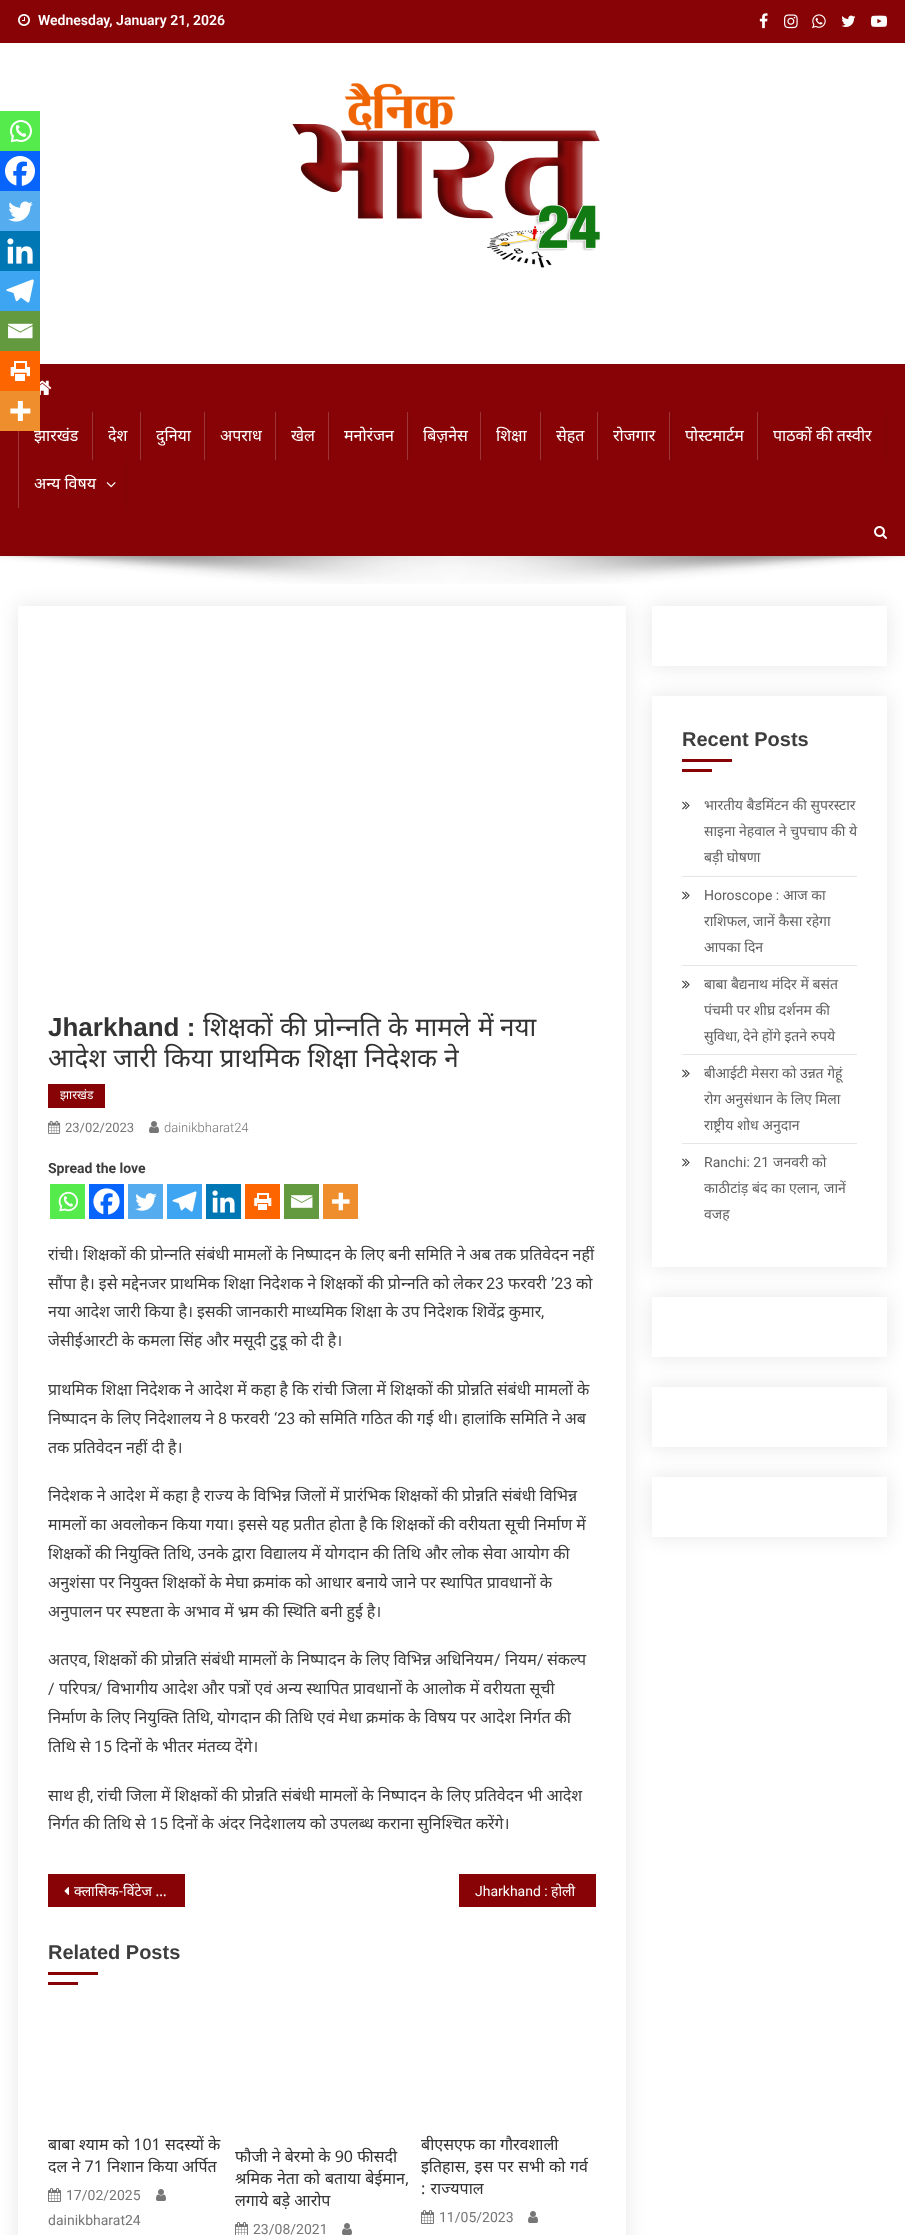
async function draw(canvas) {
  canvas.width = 905
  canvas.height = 2235
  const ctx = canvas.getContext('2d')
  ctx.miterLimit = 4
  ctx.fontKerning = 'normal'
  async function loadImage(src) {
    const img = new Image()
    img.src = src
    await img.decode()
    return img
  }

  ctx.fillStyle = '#fff'
  ctx.fillRect(0, 0, 905, 2235)
  ctx.fillStyle = '#870306'
  ctx.fillRect(0, 0, 905, 43)
  ctx.drawImage(await loadImage('image0.png'), 18, 14, 12, 12)
  ctx.font = '600 14px Roboto'
  ctx.fillStyle = '#fff'
  ctx.fillText('Wednesday, January 21, 2026', 38, 25)
  ctx.drawImage(await loadImage('image1.png'), 759, 13, 9, 16)
  ctx.drawImage(await loadImage('image2.png'), 784, 14, 14, 15)
  ctx.drawImage(await loadImage('image3.png'), 812, 14, 14, 15)
  ctx.drawImage(await loadImage('image4.png'), 841, 15, 15, 12)
  ctx.drawImage(await loadImage('image5.png'), 871, 15, 16, 12)
  ctx.drawImage(await loadImage('image6.png'), 292, 83, 309, 185)
  ctx.fillStyle = '#870306'
  ctx.fillRect(0, 364, 905, 192)
  ctx.drawImage(await loadImage('image7.png'), 40, 380, 12, 15)
  ctx.fillStyle = '#7c0306'
  ctx.fillRect(94, 412, 1, 48)
  ctx.fillStyle = '#9f3538'
  ctx.fillRect(18, 431, 1, 77)
  ctx.font = '16px Noto Sans'
  ctx.fillStyle = '#fff'
  ctx.fillText('झारखंड', 34, 441)
  ctx.fillStyle = '#7c0306'
  ctx.fillRect(142, 412, 1, 48)
  ctx.fillStyle = '#9f3538'
  ctx.fillRect(92, 412, 1, 48)
  ctx.fillStyle = '#fff'
  ctx.fillText('देश', 108, 441)
  ctx.fillStyle = '#7c0306'
  ctx.fillRect(206, 412, 1, 48)
  ctx.fillStyle = '#9f3538'
  ctx.fillRect(140, 412, 1, 48)
  ctx.fillStyle = '#fff'
  ctx.fillText('दुनिया', 156, 441)
  ctx.fillStyle = '#7c0306'
  ctx.fillRect(277, 412, 1, 48)
  ctx.fillStyle = '#9f3538'
  ctx.fillRect(204, 412, 1, 48)
  ctx.fillStyle = '#fff'
  ctx.fillText('अपराध', 220, 441)
  ctx.fillStyle = '#7c0306'
  ctx.fillRect(330, 412, 1, 48)
  ctx.fillStyle = '#9f3538'
  ctx.fillRect(275, 412, 1, 48)
  ctx.fillStyle = '#fff'
  ctx.fillText('खेल', 291, 441)
  ctx.fillStyle = '#7c0306'
  ctx.fillRect(409, 412, 1, 48)
  ctx.fillStyle = '#9f3538'
  ctx.fillRect(328, 412, 1, 48)
  ctx.fillStyle = '#fff'
  ctx.fillText('मनोरंजन', 344, 441)
  ctx.fillStyle = '#7c0306'
  ctx.fillRect(482, 412, 1, 48)
  ctx.fillStyle = '#9f3538'
  ctx.fillRect(407, 412, 1, 48)
  ctx.fillStyle = '#fff'
  ctx.fillText('बिज़नेस', 423, 441)
  ctx.fillStyle = '#7c0306'
  ctx.fillRect(542, 412, 1, 48)
  ctx.fillStyle = '#9f3538'
  ctx.fillRect(480, 412, 1, 48)
  ctx.fillStyle = '#fff'
  ctx.fillText('शिक्षा', 496, 441)
  ctx.fillStyle = '#7c0306'
  ctx.fillRect(599, 412, 1, 48)
  ctx.fillStyle = '#9f3538'
  ctx.fillRect(540, 412, 1, 48)
  ctx.fillStyle = '#fff'
  ctx.fillText('सेहत', 556, 441)
  ctx.fillStyle = '#7c0306'
  ctx.fillRect(671, 412, 1, 48)
  ctx.fillStyle = '#9f3538'
  ctx.fillRect(597, 412, 1, 48)
  ctx.fillStyle = '#fff'
  ctx.fillText('रोजगार', 613, 441)
  ctx.fillStyle = '#7c0306'
  ctx.fillRect(759, 412, 1, 48)
  ctx.fillStyle = '#9f3538'
  ctx.fillRect(669, 412, 1, 48)
  ctx.fillStyle = '#fff'
  ctx.fillText('पोस्टमार्टम', 685, 441)
  ctx.fillStyle = '#7c0306'
  ctx.fillRect(886, 412, 1, 48)
  ctx.fillStyle = '#9f3538'
  ctx.fillRect(757, 412, 1, 48)
  ctx.fillStyle = '#fff'
  ctx.fillText('पाठकों की तस्वीर', 773, 441)
  ctx.fillStyle = '#7c0306'
  ctx.fillRect(126, 460, 1, 48)
  ctx.fillStyle = '#fff'
  ctx.fillText('अन्य विषय', 34, 489)
  ctx.drawImage(await loadImage('image8.png'), 106, 482, 10, 6)
  ctx.drawImage(await loadImage('image9.png'), 874, 526, 13, 13)
  ctx.save()
  ctx.beginPath()
  ctx.moveTo(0, 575)
  ctx.lineTo(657, 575)
  ctx.lineTo(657, 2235)
  ctx.lineTo(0, 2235)
  ctx.closePath()
  ctx.moveTo(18, 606)
  ctx.lineTo(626, 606)
  ctx.lineTo(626, 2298)
  ctx.lineTo(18, 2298)
  ctx.closePath()
  ctx.clip('evenodd')
  ctx.fillStyle = '#0000001a'
  ctx.filter = 'blur(10px)'
  ctx.beginPath()
  ctx.rect(18, 606, 608, 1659)
  ctx.fill()
  ctx.filter = 'none'
  ctx.restore()
  ctx.save()
  ctx.beginPath()
  ctx.moveTo(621, 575)
  ctx.lineTo(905, 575)
  ctx.lineTo(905, 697)
  ctx.lineTo(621, 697)
  ctx.closePath()
  ctx.moveTo(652, 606)
  ctx.lineTo(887, 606)
  ctx.lineTo(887, 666)
  ctx.lineTo(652, 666)
  ctx.closePath()
  ctx.clip('evenodd')
  ctx.fillStyle = '#0000001a'
  ctx.filter = 'blur(10px)'
  ctx.beginPath()
  ctx.rect(652, 606, 235, 60)
  ctx.fill()
  ctx.filter = 'none'
  ctx.restore()
  ctx.drawImage(await loadImage('image10.png'), 0, 556, 905, 28)
  ctx.font = 'bold 26px Liberation Sans'
  ctx.fillStyle = '#333'
  ctx.fillText('Jharkhand :', 48, 1036)
  ctx.font = '26px Noto Sans'
  ctx.fillText('शिक्षकों', 203, 1036)
  ctx.fillText('की', 280, 1036)
  ctx.fillText('प्रोन्‍नति', 314, 1036)
  ctx.fillText('के', 388, 1036)
  ctx.fillText('मामले', 415, 1036)
  ctx.fillText('में', 478, 1036)
  ctx.fillText('नया', 500, 1036)
  ctx.wordSpacing = '0.5px'
  ctx.fillText('आदेश जारी किया प्राथमिक शिक्षा निदेशक ने', 48, 1067)
  ctx.fillStyle = '#870306'
  ctx.fillRect(48, 1084, 57, 24)
  ctx.wordSpacing = '0px'
  ctx.font = '12px Noto Sans'
  ctx.fillStyle = '#fff'
  ctx.fillText('झारखंड', 60, 1099)
  ctx.drawImage(await loadImage('image11.png'), 48, 1120, 13, 14)
  ctx.font = '13px Roboto'
  ctx.fillStyle = '#767676'
  ctx.fillText('23/02/2023', 65, 1132)
  ctx.drawImage(await loadImage('image12.png'), 149, 1121, 10, 12)
  ctx.font = '300 13px Roboto'
  ctx.fillText('dainikbharat24', 164, 1132)
  ctx.fillStyle = '#55eb4c'
  ctx.fillRect(0, 111, 40, 40)
  ctx.drawImage(await loadImage('image13.png'), 10, 120, 22, 23)
  ctx.fillStyle = '#0765fe'
  ctx.fillRect(0, 151, 40, 40)
  ctx.drawImage(await loadImage('image14.png'), 5, 156, 30, 30)
  ctx.fillStyle = '#55acee'
  ctx.fillRect(0, 191, 40, 40)
  ctx.drawImage(await loadImage('image15.png'), 8, 201, 25, 21)
  ctx.fillStyle = '#0077b5'
  ctx.fillRect(0, 231, 40, 40)
  ctx.drawImage(await loadImage('image16.png'), 7, 238, 26, 26)
  ctx.fillStyle = '#3da5f1'
  ctx.fillRect(0, 271, 40, 40)
  ctx.drawImage(await loadImage('image17.png'), 6, 279, 28, 24)
  ctx.fillStyle = '#649a3f'
  ctx.fillRect(0, 311, 40, 40)
  ctx.drawImage(await loadImage('image18.png'), 8, 323, 25, 16)
  ctx.fillStyle = '#fd6500'
  ctx.fillRect(0, 351, 40, 40)
  ctx.drawImage(await loadImage('image19.png'), 10, 361, 21, 20)
  ctx.fillStyle = '#ee8e2d'
  ctx.fillRect(0, 391, 40, 40)
  ctx.drawImage(await loadImage('image20.png'), 10, 401, 21, 20)
  ctx.font = 'bold 14px Roboto'
  ctx.fillStyle = '#3d3d3d'
  ctx.fillText('Spread the love', 48, 1173)
  ctx.fillStyle = '#55eb4c'
  ctx.fillRect(50, 1184, 35, 35)
  ctx.drawImage(await loadImage('image21.png'), 58, 1191, 20, 21)
  ctx.fillStyle = '#0765fe'
  ctx.fillRect(89, 1184, 35, 35)
  ctx.drawImage(await loadImage('image22.png'), 93, 1188, 27, 27)
  ctx.fillStyle = '#55acee'
  ctx.fillRect(128, 1184, 35, 35)
  ctx.drawImage(await loadImage('image23.png'), 135, 1193, 22, 18)
  ctx.fillStyle = '#3da5f1'
  ctx.fillRect(167, 1184, 35, 35)
  ctx.drawImage(await loadImage('image24.png'), 172, 1191, 25, 21)
  ctx.fillStyle = '#0077b5'
  ctx.fillRect(206, 1184, 35, 35)
  ctx.drawImage(await loadImage('image25.png'), 212, 1190, 23, 23)
  ctx.fillStyle = '#fd6500'
  ctx.fillRect(245, 1184, 35, 35)
  ctx.drawImage(await loadImage('image26.png'), 254, 1193, 18, 17)
  ctx.fillStyle = '#649a3f'
  ctx.fillRect(284, 1184, 35, 35)
  ctx.drawImage(await loadImage('image27.png'), 291, 1195, 22, 13)
  ctx.fillStyle = '#ee8e2d'
  ctx.fillRect(323, 1184, 35, 35)
  ctx.drawImage(await loadImage('image28.png'), 332, 1192, 18, 19)
  ctx.font = '16px Noto Sans'
  ctx.fillStyle = '#3d3d3d'
  ctx.fillText('रांची।', 48, 1260)
  ctx.wordSpacing = '-0.2px'
  ctx.fillText('शिक्षकों की प्रोन्‍नति संबंधी मामलों के निष्‍पादन के लिए बनी समिति ने अब तक प्रतिवेदन नहीं', 83, 1260)
  ctx.wordSpacing = '-0.1px'
  ctx.fillText('सौंपा है। इसे मद्देनजर प्राथमिक शिक्षा निदेशक ने शिक्षकों की प्रोन्‍नति को लेकर', 48, 1289)
  ctx.wordSpacing = '0px'
  ctx.font = '16px Roboto'
  ctx.fillText('23', 486, 1289)
  ctx.font = '16px Noto Sans'
  ctx.fillText('फरवरी', 508, 1289)
  ctx.font = '16px Roboto'
  ctx.fillText('’23', 551, 1289)
  ctx.font = '16px Noto Sans'
  ctx.fillText('को', 576, 1289)
  ctx.wordSpacing = '-0.2px'
  ctx.fillText('नया आदेश जारी किया है। इसकी जानकारी माध्‍यमिक शिक्षा के उप निदेशक शिवेंद्र कुमार', 48, 1317)
  ctx.wordSpacing = '0px'
  ctx.font = '16px Roboto'
  ctx.fillText(',', 541, 1317)
  ctx.wordSpacing = '-0.2px'
  ctx.font = '16px Noto Sans'
  ctx.fillText('जेसीईआरटी के कमला सिंह और मसूदी टुडू को दी है।', 48, 1346)
  ctx.fillText('प्राथमिक शिक्षा निदेशक ने आदेश में कहा है कि रांची जिला में शिक्षकों की प्रोन्नति संबंधी मामलों के', 48, 1395)
  ctx.wordSpacing = '-0.25px'
  ctx.fillText('निष्पादन के लिए निदेशालय ने', 48, 1424)
  ctx.wordSpacing = '0px'
  ctx.font = '16px Roboto'
  ctx.fillText('8', 218, 1424)
  ctx.font = '16px Noto Sans'
  ctx.fillText('फरवरी', 231, 1424)
  ctx.font = '16px Roboto'
  ctx.fillText('‘23', 274, 1424)
  ctx.wordSpacing = '-0.25px'
  ctx.font = '16px Noto Sans'
  ctx.fillText('को समिति गठित की गई थी। हालांकि समिति ने अब', 299, 1424)
  ctx.wordSpacing = '-0.2px'
  ctx.fillText('तक प्रतिवेदन नहीं दी है।', 48, 1453)
  ctx.fillText('निदेशक ने आदेश में कहा है राज्य के विभिन्न जिलों में प्रारंभिक शिक्षकों की प्रोन्नति संबंधी विभिन्न', 48, 1501)
  ctx.fillText('मामलों का अवलोकन किया गया। इससे यह प्रतीत होता है कि शिक्षकों की वरीयता सूची निर्माण में', 48, 1530)
  ctx.fillText('शिक्षकों की नियुक्ति तिथि', 48, 1559)
  ctx.wordSpacing = '0px'
  ctx.font = '16px Roboto'
  ctx.fillText(',', 191, 1559)
  ctx.wordSpacing = '-0.2px'
  ctx.font = '16px Noto Sans'
  ctx.fillText('उनके द्वारा विद्यालय में योगदान की तिथि और लोक सेवा आयोग की', 198, 1559)
  ctx.fillText('अनुशंसा पर नियुक्त शिक्षकों के मेघा क्रमांक को आधार बनाये जाने पर स्थापित प्रावधानों के', 48, 1588)
  ctx.fillText('अनुपालन पर स्पष्टता के अभाव में भ्रम की स्थिति बनी हुई है।', 48, 1617)
  ctx.wordSpacing = '0px'
  ctx.fillText('अतएव', 48, 1665)
  ctx.font = '16px Roboto'
  ctx.fillText(',', 87, 1665)
  ctx.wordSpacing = '-0.25px'
  ctx.font = '16px Noto Sans'
  ctx.fillText('शिक्षकों की प्रोन्नति संबंधी मामलों के निष्पादन के लिए विभिन्न अधिनियम', 94, 1665)
  ctx.wordSpacing = '0px'
  ctx.font = '16px Roboto'
  ctx.fillText('/', 494, 1665)
  ctx.font = '16px Noto Sans'
  ctx.fillText('नियम', 505, 1665)
  ctx.font = '16px Roboto'
  ctx.fillText('/', 537, 1665)
  ctx.font = '16px Noto Sans'
  ctx.fillText('संकल्प', 547, 1665)
  ctx.font = '16px Roboto'
  ctx.fillText('/', 48, 1694)
  ctx.font = '16px Noto Sans'
  ctx.fillText('परिपत्र', 59, 1694)
  ctx.font = '16px Roboto'
  ctx.fillText('/', 96, 1694)
  ctx.wordSpacing = '-0.2px'
  ctx.font = '16px Noto Sans'
  ctx.fillText('विभागीय आदेश और पत्रों एवं अन्य स्थापित प्रावधानों के आलोक में वरीयता सूची', 107, 1694)
  ctx.fillText('निर्माण के लिए नियुक्ति तिथि', 48, 1723)
  ctx.wordSpacing = '0px'
  ctx.font = '16px Roboto'
  ctx.fillText(',', 210, 1723)
  ctx.wordSpacing = '-0.2px'
  ctx.font = '16px Noto Sans'
  ctx.fillText('योगदान की तिथि एवं मेधा क्रमांक के विषय पर आदेश निर्गत की', 217, 1723)
  ctx.wordSpacing = '-0.1px'
  ctx.fillText('तिथि से', 48, 1752)
  ctx.wordSpacing = '0px'
  ctx.font = '16px Roboto'
  ctx.fillText('15', 94, 1752)
  ctx.wordSpacing = '-0.1px'
  ctx.font = '16px Noto Sans'
  ctx.fillText('दिनों के भीतर मंतव्य देंगे।', 116, 1752)
  ctx.wordSpacing = '-0.2px'
  ctx.fillText('साथ ही', 48, 1801)
  ctx.wordSpacing = '0px'
  ctx.font = '16px Roboto'
  ctx.fillText(',', 90, 1801)
  ctx.wordSpacing = '-0.2px'
  ctx.font = '16px Noto Sans'
  ctx.fillText('रांची जिला में शिक्षकों की प्रोन्नति संबंधी मामलों के निष्पादन के लिए प्रतिवेदन भी आदेश', 97, 1801)
  ctx.fillText('निर्गत की तिथि से', 48, 1829)
  ctx.wordSpacing = '0px'
  ctx.font = '16px Roboto'
  ctx.fillText('15', 150, 1829)
  ctx.wordSpacing = '-0.2px'
  ctx.font = '16px Noto Sans'
  ctx.fillText('दिनों के अंदर निदेशालय को उपलब्ध कराना सुनिश्चित करेंगे।', 172, 1829)
  ctx.fillStyle = '#870306'
  ctx.fillRect(48, 1874, 137, 33)
  ctx.drawImage(await loadImage('image29.png'), 64, 1887, 5, 8)
  ctx.wordSpacing = '0px'
  ctx.font = '14px Noto Sans'
  ctx.fillStyle = '#fff'
  ctx.fillText('क्लासिक', 74, 1896)
  ctx.font = '14px Roboto'
  ctx.fillText('-', 119, 1896)
  ctx.font = '14px Noto Sans'
  ctx.fillText('विंटेज …', 123, 1896)
  ctx.fillStyle = '#870306'
  ctx.fillRect(459, 1874, 137, 33)
  ctx.font = '14px Roboto'
  ctx.fillStyle = '#fff'
  ctx.fillText('Jharkhand :', 475, 1896)
  ctx.font = '14px Noto Sans'
  ctx.fillText('होली', 551, 1896)
  ctx.font = 'bold 20px Liberation Sans'
  ctx.fillStyle = '#3d3d3d'
  ctx.fillText('Related Posts', 48, 1959)
  ctx.fillStyle = '#870306'
  ctx.fillRect(48, 1972, 50, 3)
  ctx.fillRect(48, 1982, 30, 3)
  ctx.font = '16px Noto Sans'
  ctx.fillStyle = '#333'
  ctx.fillText('बाबा श्याम को 101 सदस्‍यों के', 48, 2150)
  ctx.fillText('दल ने 71 निशान किया अर्पित', 48, 2172)
  ctx.drawImage(await loadImage('image30.png'), 48, 2188, 13, 14)
  ctx.font = '14px Roboto'
  ctx.fillStyle = '#767676'
  ctx.fillText('17/02/2025', 66, 2200)
  ctx.drawImage(await loadImage('image12.png'), 156, 2189, 10, 12)
  ctx.fillText('dainikbharat24', 48, 2225)
  ctx.font = '16px Noto Sans'
  ctx.fillStyle = '#333'
  ctx.fillText('फौजी ने बेरमो के 90 फीसदी', 235, 2162)
  ctx.wordSpacing = '0.5px'
  ctx.fillText('श्रमिक नेता को बताया बेईमान,', 235, 2184)
  ctx.wordSpacing = '0px'
  ctx.fillText('लगाये बड़े आरोप', 235, 2206)
  ctx.drawImage(await loadImage('image31.png'), 235, 2222, 13, 13)
  ctx.font = '14px Roboto'
  ctx.fillStyle = '#767676'
  ctx.fillText('23/08/2021', 253, 2234)
  ctx.drawImage(await loadImage('image12.png'), 342, 2223, 10, 12)
  ctx.font = '16px Noto Sans'
  ctx.fillStyle = '#333'
  ctx.fillText('बीएसएफ का गौरवशाली', 421, 2150)
  ctx.wordSpacing = '0.5px'
  ctx.fillText('इतिहास, इस पर सभी को गर्व', 421, 2172)
  ctx.wordSpacing = '1px'
  ctx.fillText(': राज्यपाल', 421, 2194)
  ctx.drawImage(await loadImage('image30.png'), 421, 2210, 13, 14)
  ctx.wordSpacing = '0px'
  ctx.font = '14px Roboto'
  ctx.fillStyle = '#767676'
  ctx.fillText('11/05/2023', 439, 2222)
  ctx.drawImage(await loadImage('image12.png'), 528, 2211, 10, 12)
  ctx.save()
  ctx.beginPath()
  ctx.moveTo(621, 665)
  ctx.lineTo(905, 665)
  ctx.lineTo(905, 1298)
  ctx.lineTo(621, 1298)
  ctx.closePath()
  ctx.moveTo(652, 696)
  ctx.lineTo(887, 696)
  ctx.lineTo(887, 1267)
  ctx.lineTo(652, 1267)
  ctx.closePath()
  ctx.clip('evenodd')
  ctx.fillStyle = '#0000001a'
  ctx.filter = 'blur(10px)'
  ctx.beginPath()
  ctx.rect(652, 696, 235, 571)
  ctx.fill()
  ctx.filter = 'none'
  ctx.restore()
  ctx.font = 'bold 20px Liberation Sans'
  ctx.fillStyle = '#3d3d3d'
  ctx.fillText('Recent Posts', 682, 746)
  ctx.fillStyle = '#870306'
  ctx.fillRect(682, 759, 50, 3)
  ctx.fillRect(682, 769, 30, 3)
  ctx.fillStyle = '#e6e6e6'
  ctx.fillRect(682, 876, 175, 1)
  ctx.drawImage(await loadImage('image32.png'), 682, 801, 8, 9)
  ctx.font = '14px Noto Sans'
  ctx.fillStyle = '#5f5f5f'
  ctx.fillText('भारतीय बैडमिंटन की सुपरस्टार', 704, 810)
  ctx.fillText('साइना नेहवाल ने चुपचाप की ये', 704, 836)
  ctx.fillText('बड़ी घोषणा', 704, 862)
  ctx.fillStyle = '#e6e6e6'
  ctx.fillRect(682, 965, 175, 1)
  ctx.drawImage(await loadImage('image32.png'), 682, 891, 8, 9)
  ctx.font = '14px Roboto'
  ctx.fillStyle = '#5f5f5f'
  ctx.fillText('Horoscope :', 704, 900)
  ctx.font = '14px Noto Sans'
  ctx.fillText('आज का', 783, 900)
  ctx.fillText('राशिफल', 704, 926)
  ctx.font = '14px Roboto'
  ctx.fillText(',', 747, 926)
  ctx.font = '14px Noto Sans'
  ctx.fillText('जानें कैसा रहेगा', 753, 926)
  ctx.fillText('आपका दिन', 704, 952)
  ctx.fillStyle = '#e6e6e6'
  ctx.fillRect(682, 1054, 175, 1)
  ctx.drawImage(await loadImage('image32.png'), 682, 980, 8, 9)
  ctx.fillStyle = '#5f5f5f'
  ctx.fillText('बाबा बैद्यनाथ मंदिर में बसंत', 704, 989)
  ctx.fillText('पंचमी पर शीघ्र दर्शनम की', 704, 1015)
  ctx.fillText('सुविधा', 704, 1041)
  ctx.font = '14px Roboto'
  ctx.fillText(',', 737, 1041)
  ctx.font = '14px Noto Sans'
  ctx.fillText('देने होंगे इतने रुपये', 743, 1041)
  ctx.fillStyle = '#e6e6e6'
  ctx.fillRect(682, 1143, 175, 1)
  ctx.drawImage(await loadImage('image32.png'), 682, 1069, 8, 9)
  ctx.fillStyle = '#5f5f5f'
  ctx.fillText('बीआईटी मेसरा को उन्नत गेहूं', 704, 1078)
  ctx.fillText('रोग अनुसंधान के लिए मिला', 704, 1104)
  ctx.fillText('राष्ट्रीय शोध अनुदान', 704, 1130)
  ctx.drawImage(await loadImage('image32.png'), 682, 1158, 8, 9)
  ctx.font = '14px Roboto'
  ctx.fillText('Ranchi: 21', 704, 1167)
  ctx.font = '14px Noto Sans'
  ctx.fillText('जनवरी को', 773, 1167)
  ctx.fillText('काठीटांड़ बंद का एलान', 704, 1193)
  ctx.font = '14px Roboto'
  ctx.fillText(',', 817, 1193)
  ctx.font = '14px Noto Sans'
  ctx.fillText('जानें', 824, 1193)
  ctx.fillText('वजह', 704, 1219)
  ctx.save()
  ctx.beginPath()
  ctx.moveTo(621, 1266)
  ctx.lineTo(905, 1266)
  ctx.lineTo(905, 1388)
  ctx.lineTo(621, 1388)
  ctx.closePath()
  ctx.moveTo(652, 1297)
  ctx.lineTo(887, 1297)
  ctx.lineTo(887, 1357)
  ctx.lineTo(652, 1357)
  ctx.closePath()
  ctx.clip('evenodd')
  ctx.fillStyle = '#0000001a'
  ctx.filter = 'blur(10px)'
  ctx.beginPath()
  ctx.rect(652, 1297, 235, 60)
  ctx.fill()
  ctx.filter = 'none'
  ctx.restore()
  ctx.save()
  ctx.beginPath()
  ctx.moveTo(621, 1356)
  ctx.lineTo(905, 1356)
  ctx.lineTo(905, 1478)
  ctx.lineTo(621, 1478)
  ctx.closePath()
  ctx.moveTo(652, 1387)
  ctx.lineTo(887, 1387)
  ctx.lineTo(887, 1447)
  ctx.lineTo(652, 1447)
  ctx.closePath()
  ctx.clip('evenodd')
  ctx.fillStyle = '#0000001a'
  ctx.filter = 'blur(10px)'
  ctx.beginPath()
  ctx.rect(652, 1387, 235, 60)
  ctx.fill()
  ctx.filter = 'none'
  ctx.restore()
  ctx.save()
  ctx.beginPath()
  ctx.moveTo(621, 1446)
  ctx.lineTo(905, 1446)
  ctx.lineTo(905, 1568)
  ctx.lineTo(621, 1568)
  ctx.closePath()
  ctx.moveTo(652, 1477)
  ctx.lineTo(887, 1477)
  ctx.lineTo(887, 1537)
  ctx.lineTo(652, 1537)
  ctx.closePath()
  ctx.clip('evenodd')
  ctx.fillStyle = '#0000001a'
  ctx.filter = 'blur(10px)'
  ctx.beginPath()
  ctx.rect(652, 1477, 235, 60)
  ctx.fill()
  ctx.filter = 'none'
  ctx.restore()
}

draw(document.querySelector('canvas'))
